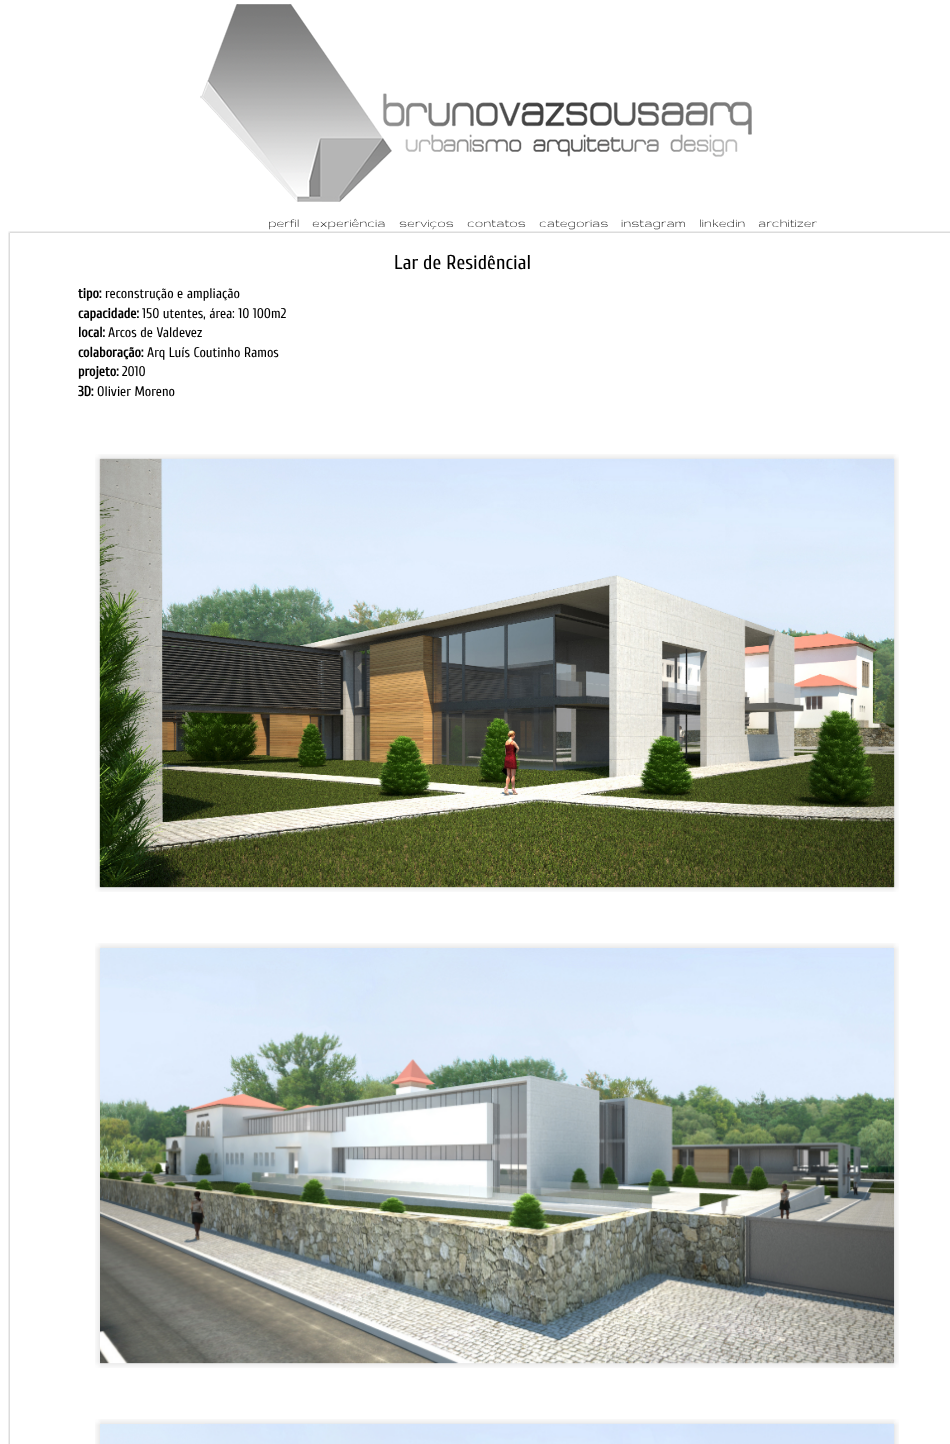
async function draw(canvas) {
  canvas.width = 950
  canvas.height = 1444
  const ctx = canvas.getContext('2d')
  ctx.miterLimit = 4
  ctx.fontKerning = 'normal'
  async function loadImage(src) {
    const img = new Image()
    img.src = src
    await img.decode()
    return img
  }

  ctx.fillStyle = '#fff'
  ctx.fillRect(0, 0, 950, 1444)
  ctx.drawImage(await loadImage('image0.png'), 200, 4, 552, 198)
  ctx.font = '14px Gruppo'
  ctx.fillStyle = '#000'
  ctx.fillText('perfil', 268, 227)
  ctx.fillText('experiência', 312, 227)
  ctx.fillText('serviços', 399, 227)
  ctx.fillText('contatos', 467, 227)
  ctx.fillText('categorias', 539, 227)
  ctx.fillText('instagram', 621, 227)
  ctx.fillText('linkedin', 699, 227)
  ctx.fillText('architizer', 758, 227)
  ctx.drawImage(await loadImage('image1.png'), 8, 231, 942, 1213)
  ctx.font = '20px Cuprum'
  ctx.fillText('Lar de Residêncial', 394, 269)
  ctx.font = 'bold 14px Cuprum'
  ctx.fillText('tipo:', 78, 298)
  ctx.font = '14px Cuprum'
  ctx.fillText('reconstrução e ampliação', 105, 298)
  ctx.font = 'bold 14px Cuprum'
  ctx.fillText('capacidade:', 78, 318)
  ctx.font = '14px Cuprum'
  ctx.fillText('150 utentes, área: 10 100m2', 142, 318)
  ctx.font = 'bold 14px Cuprum'
  ctx.fillText('local:', 78, 337)
  ctx.font = '14px Cuprum'
  ctx.fillText('Arcos de Valdevez', 108, 337)
  ctx.font = 'bold 14px Cuprum'
  ctx.fillText('colaboração:', 78, 357)
  ctx.font = '14px Cuprum'
  ctx.fillText('Arq Luís Coutinho Ramos', 147, 357)
  ctx.font = 'bold 14px Cuprum'
  ctx.fillText('projeto:', 78, 376)
  ctx.font = '14px Cuprum'
  ctx.fillText('2010', 122, 376)
  ctx.font = 'bold 14px Cuprum'
  ctx.fillText('3D:', 78, 396)
  ctx.font = '14px Cuprum'
  ctx.fillText('Olivier Moreno', 97, 396)
  ctx.drawImage(await loadImage('image2.png'), 95, 454, 804, 438)
  ctx.drawImage(await loadImage('image3.png'), 99, 458, 796, 430)
  ctx.drawImage(await loadImage('image4.png'), 95, 943, 804, 425)
  ctx.drawImage(await loadImage('image5.png'), 100, 1034, 795, 330)
  ctx.drawImage(await loadImage('image6.png'), 95, 1419, 804, 25)
  ctx.drawImage(await loadImage('image7.png'), 205, 1423, 690, 21)
}

draw(document.querySelector('canvas'))
